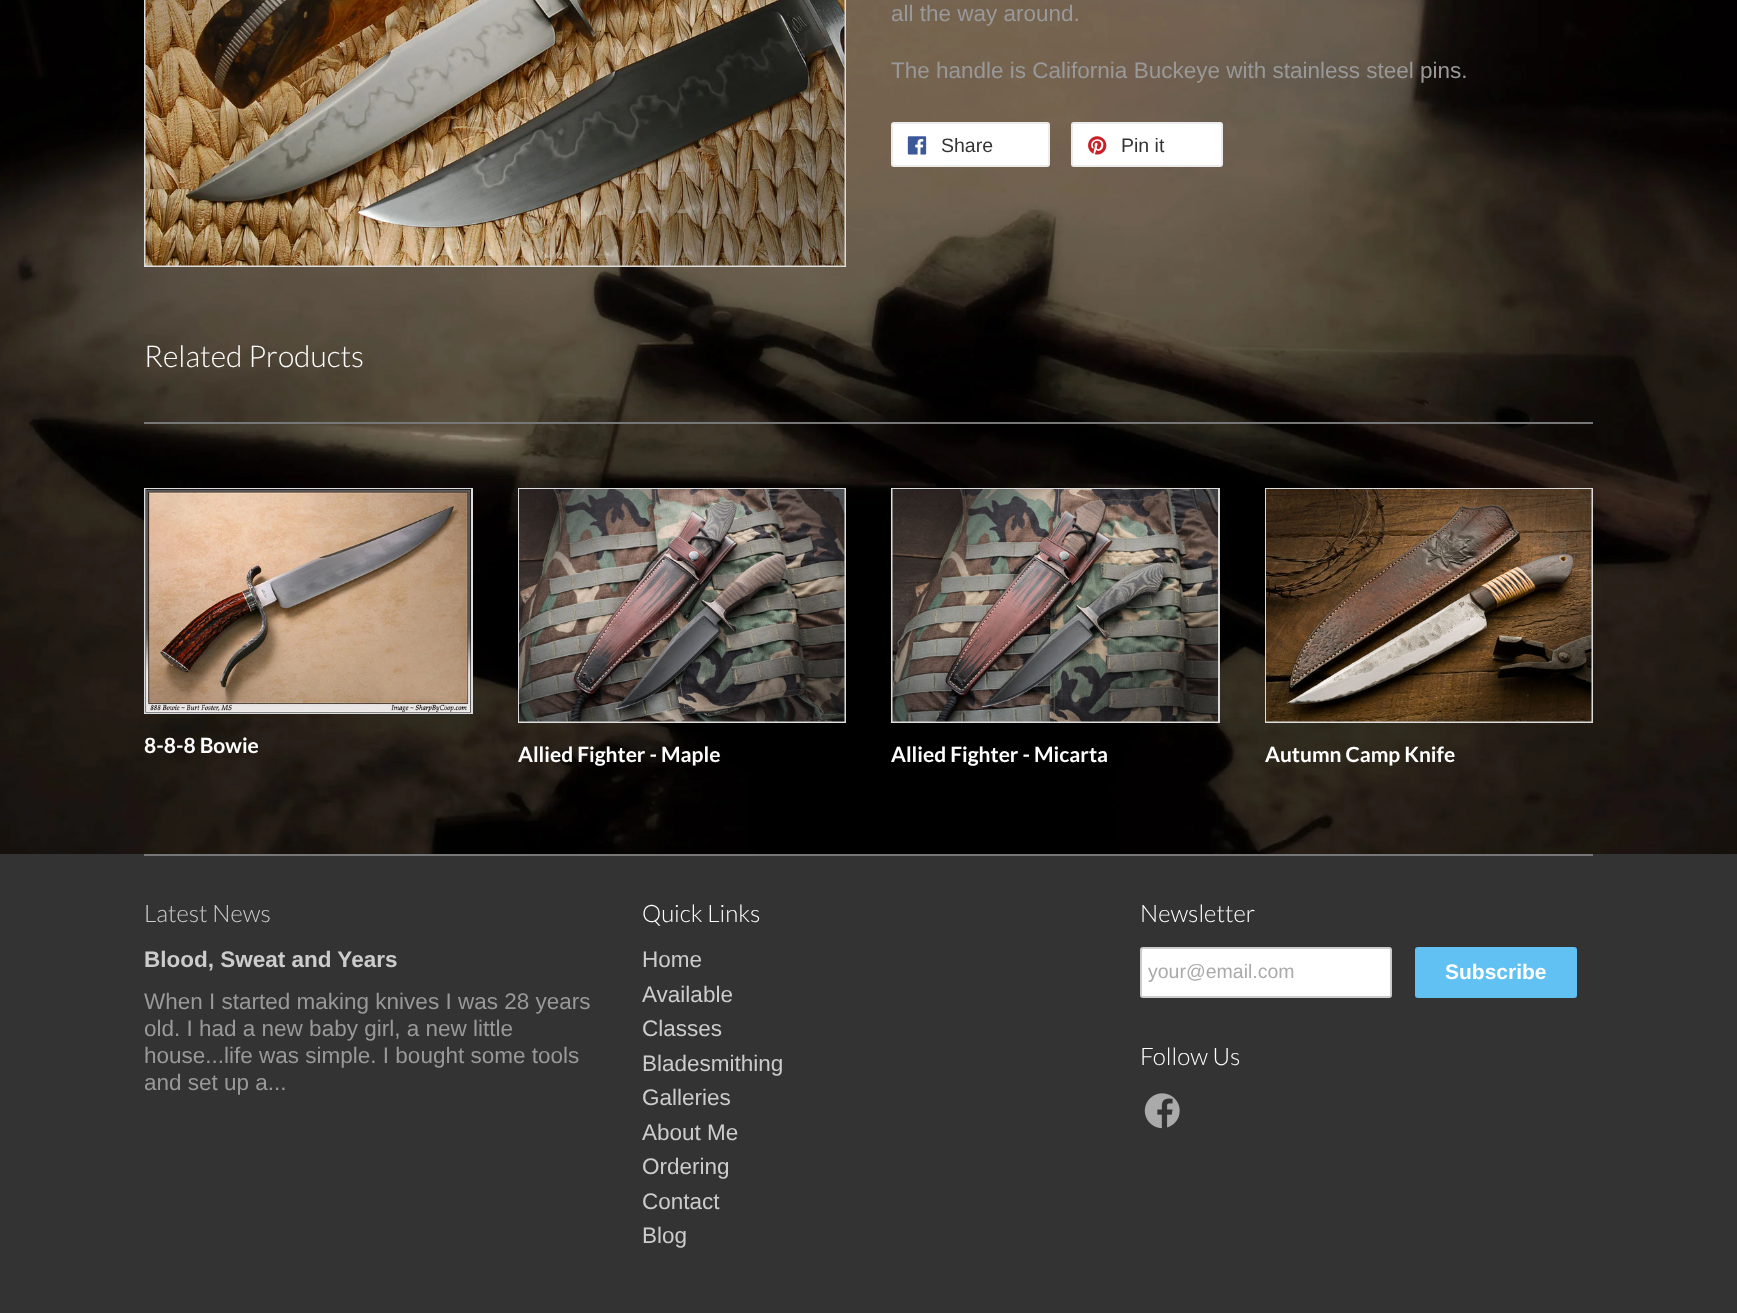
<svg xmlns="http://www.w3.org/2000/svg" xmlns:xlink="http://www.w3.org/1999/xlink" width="1737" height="1313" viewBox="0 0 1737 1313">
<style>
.cls-1{font:22.5px Liberation Sans;fill:#999999}
.cls-2{font:19.5px Liberation Sans;fill:#333333}
.cls-3{font:300 30px Lato;fill:#ffffff}
.cls-4{font:bold 21px Lato;fill:#ffffff}
.cls-5{font:300 24px Lato;fill:#cccccc}
.cls-6{font:bold 22.5px Liberation Sans;fill:#cccccc}
.cls-7{font:300 24px Lato;fill:#ffffff}
.cls-8{font:22.5px Liberation Sans;fill:#cccccc}
.cls-9{font:19.5px Liberation Sans;fill:#aaaaaa}
.cls-10{font:bold 21px Liberation Sans;fill:#ffffff}
</style>
<rect width="100%" height="100%" fill="#ffffff"/>
<image xlink:href="image0.png" x="0" y="0" width="1737" height="854"/>
<rect fill="none" stroke="#dddddd" stroke-width="2" x="145" y="-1" width="700" height="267"/>
<image xlink:href="image1.png" x="145" y="0" width="700" height="266"/>
<rect fill="#ffffff" stroke="#ececec" stroke-width="2" x="892" y="123" width="157" height="43" rx="2"/>
<image xlink:href="image2.png" x="907" y="136" width="20" height="19"/>
<rect fill="#ffffff" stroke="#ececec" stroke-width="2" x="1072" y="123" width="150" height="43" rx="2"/>
<image xlink:href="image3.png" x="1088" y="136" width="19" height="19"/>
<rect fill="#777777" x="144" y="422" width="1449" height="2"/>
<rect fill="none" stroke="#dddddd" stroke-width="2" x="145" y="489" width="327" height="224"/>
<image xlink:href="image4.png" x="145" y="489" width="326" height="224"/>
<rect fill="none" stroke="#dddddd" stroke-width="2" x="519" y="489" width="326" height="233"/>
<image xlink:href="image5.png" x="519" y="489" width="326" height="233"/>
<rect fill="none" stroke="#dddddd" stroke-width="2" x="892" y="489" width="327" height="233"/>
<image xlink:href="image6.png" x="892" y="489" width="326" height="233"/>
<rect fill="none" stroke="#dddddd" stroke-width="2" x="1266" y="489" width="326" height="233"/>
<image xlink:href="image7.png" x="1266" y="489" width="326" height="233"/>
<rect fill="#333333" x="0" y="854" width="1737" height="459"/>
<rect fill="#777777" x="144" y="854" width="1449" height="2"/>
<rect fill="#ffffff" stroke="#cccccc" stroke-width="2" x="1141" y="948" width="250" height="49" rx="2"/>
<rect fill="#60c1f2" x="1415" y="947" width="162" height="51" rx="3"/>
<image xlink:href="image8.png" x="1144" y="1093" width="36" height="36"/>
<text class="cls-1" x="891" y="21">all the way around.</text>
<text class="cls-1" x="891" y="78">The handle is California Buckeye with stainless steel pins.</text>
<text class="cls-2" x="941" y="152">Share</text>
<text class="cls-2" x="1121" y="152">Pin it</text>
<text class="cls-3" x="144" y="367">Related Products</text>
<text class="cls-4" x="144" y="753">8-8-8 Bowie</text>
<text class="cls-4" x="518" y="762">Allied Fighter - Maple</text>
<text class="cls-4" x="891" y="762">Allied Fighter - Micarta</text>
<text class="cls-4" x="1265" y="762">Autumn Camp Knife</text>
<text class="cls-5" x="144" y="922">Latest News</text>
<text class="cls-6" x="144" y="967">Blood, Sweat and Years</text>
<text class="cls-1"><tspan x="144" y="1009">When I started making knives I was 28 years</tspan><tspan x="144" y="1036">old. I had a new baby girl, a new little</tspan><tspan x="144" y="1063">house...life was simple. I bought some tools</tspan><tspan x="144" y="1090">and set up a...</tspan></text>
<text class="cls-7" x="642" y="922">Quick Links</text>
<text class="cls-8"><tspan x="642" y="967">Home</tspan><tspan x="642" y="1002">Available</tspan><tspan x="642" y="1036">Classes</tspan><tspan x="642" y="1071">Bladesmithing</tspan><tspan x="642" y="1105">Galleries</tspan><tspan x="642" y="1140">About Me</tspan><tspan x="642" y="1174">Ordering</tspan><tspan x="642" y="1209">Contact</tspan><tspan x="642" y="1243">Blog</tspan></text>
<text class="cls-7" x="1140" y="922">Newsletter</text>
<text class="cls-9" x="1148" y="978">your@email.com</text>
<text class="cls-10" x="1445" y="979">Subscribe</text>
<text class="cls-7" x="1140" y="1065">Follow Us</text>
</svg>
